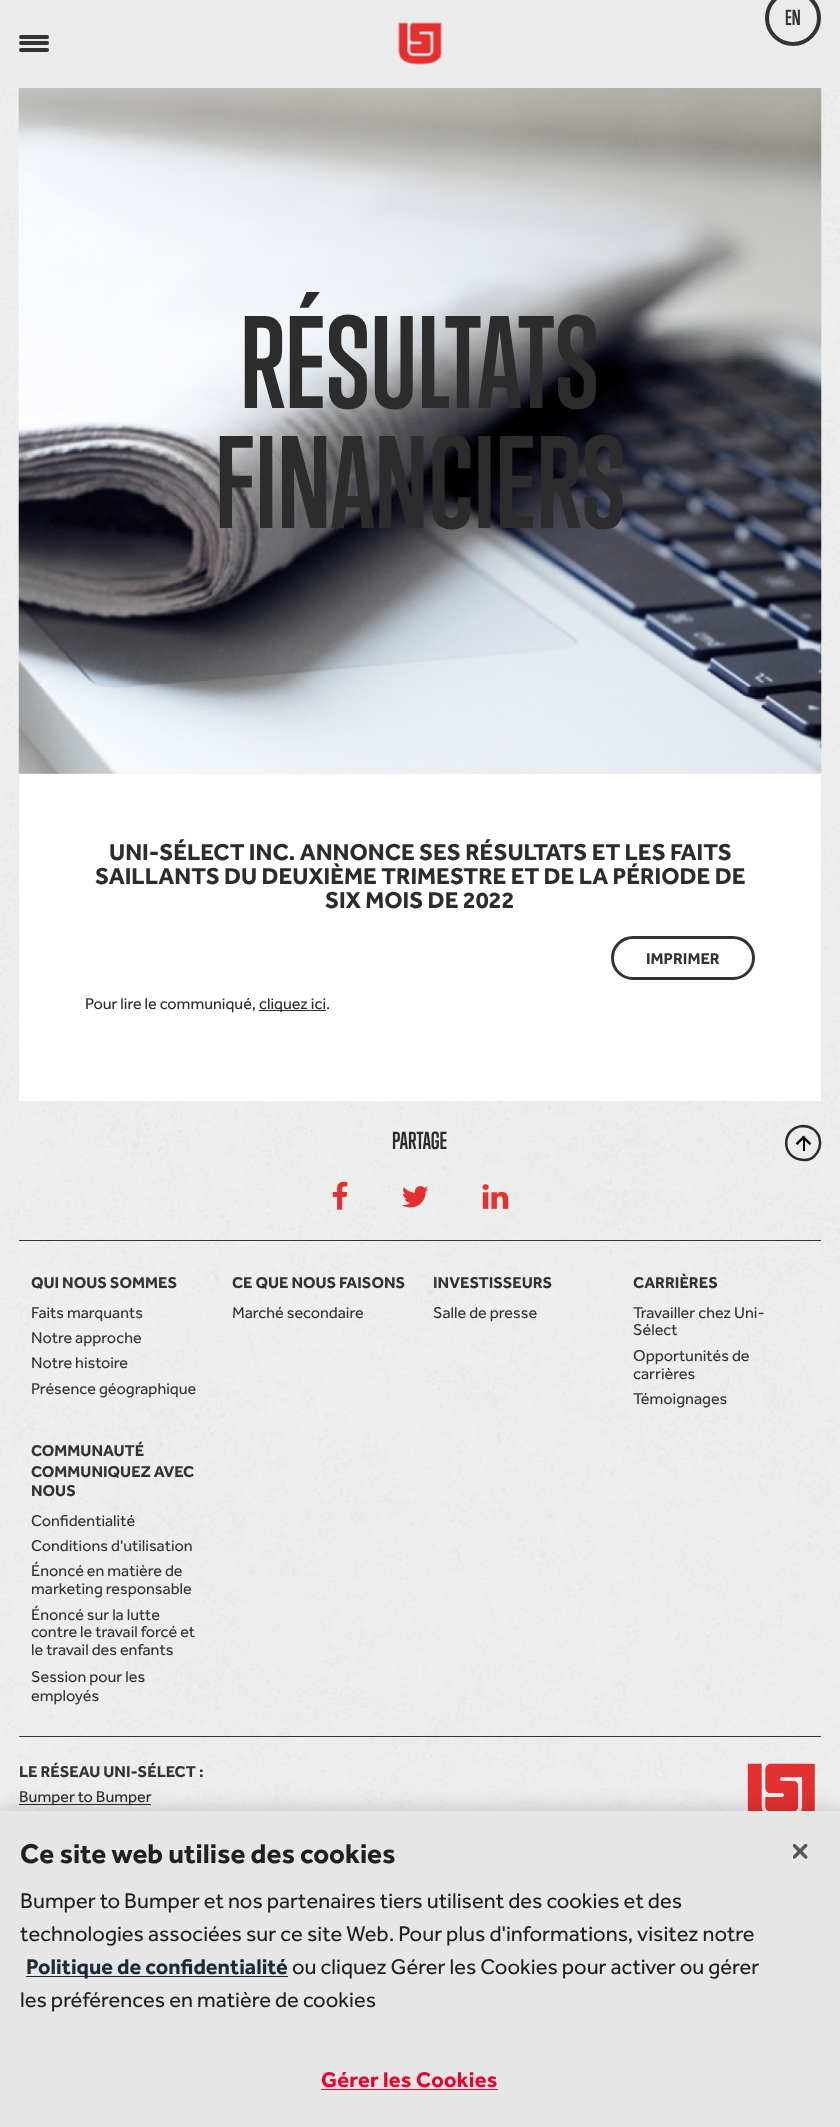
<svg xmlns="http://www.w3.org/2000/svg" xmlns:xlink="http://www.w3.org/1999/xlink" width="840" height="2127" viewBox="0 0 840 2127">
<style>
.cls-1{font:bold 20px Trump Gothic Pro;fill:#333333}
.cls-2{font:bold 120px Trump Gothic Pro;fill:#2c2c2c}
.cls-3{font:bold 23.75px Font;fill:#2c2c2c}
.cls-4{font:bold 16.25px Font;fill:#333333}
.cls-5{font:16.25px Font;fill:#2c2c2c}
.cls-6{font:bold 22.5px Trump Gothic Pro;fill:#2c2c2c}
.cls-7{font:16.25px Font;fill:#333333}
.cls-8{font:bold 28px Font;fill:#231f20}
.cls-9{font:22px Font;fill:#231f20}
.cls-10{font:bold 22px Font;fill:#1c2b39}
.cls-11{font:bold 22px Font;letter-spacing:0.25px;fill:#ea0029}
</style>
<rect width="100%" height="100%" fill="#efefef"/>
<image xlink:href="image0.png" x="0" y="89" width="840" height="1722"/>
<rect fill="#ebebeb" x="0" y="0" width="840" height="88"/>
<circle fill="none" stroke="#333333" stroke-width="4" cx="793" cy="18" r="26"/>
<rect fill="#333333" x="19" y="35" width="30" height="4" rx="2"/>
<rect fill="#333333" x="19" y="41" width="30" height="4" rx="2"/>
<rect fill="#333333" x="19" y="48" width="30" height="4" rx="2"/>
<image xlink:href="image1.png" x="398" y="22" width="44" height="43"/>
<image xlink:href="image2.png" x="18" y="88" width="804" height="686"/>
<rect fill="#ffffff" x="19" y="774" width="802" height="327"/>
<rect fill="none" stroke="#333333" stroke-width="3" x="612.5" y="937.5" width="141" height="41" rx="20.5"/>
<rect fill="#2c2c2c" x="259" y="1010" width="67" height="1"/>
<image xlink:href="image3.png" x="332" y="1181" width="16" height="29"/>
<image xlink:href="image4.png" x="402" y="1186" width="27" height="22"/>
<image xlink:href="image5.png" x="482" y="1184" width="27" height="25"/>
<image xlink:href="image6.png" x="795" y="1135" width="16" height="16"/>
<path fill="none" stroke="#2c2c2c" stroke-width="2.5" d="M804 1160C781 1160 780 1128 802.5 1126C806 1126 810 1127 813 1129C826 1138 820 1160 804 1160Z"/>
<rect fill="#333333" x="19" y="1240" width="802" height="1"/>
<rect fill="#333333" x="19" y="1736" width="802" height="1"/>
<rect fill="#2c2c2c" x="19" y="1804" width="132" height="1"/>
<image xlink:href="image7.png" x="747" y="1763" width="68" height="48"/>
<rect fill="#000000" fill-opacity="0.2" filter="blur(11px)" x="0" y="1811" width="840" height="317"/>
<rect fill="#e6e6e6" x="0" y="1811" width="840" height="316"/>
<rect fill="#1c2b39" x="26" y="1976" width="262" height="1"/>
<rect fill="#ea0029" x="321" y="2089" width="177" height="1"/>
<image xlink:href="image8.png" x="793" y="1844" width="15" height="15"/>
<text class="cls-1" x="785" y="25">EN</text>
<text class="cls-2" x="240" y="408">RÉSULTATS</text>
<text class="cls-2" x="215" y="528">FINANCIERS</text>
<text class="cls-3" x="109" y="860">UNI-SÉLECT INC. ANNONCE SES RÉSULTATS ET LES FAITS</text>
<text class="cls-3" x="95" y="884">SAILLANTS DU DEUXIÈME TRIMESTRE ET DE LA PÉRIODE DE</text>
<text class="cls-3" x="325" y="908">SIX MOIS DE 2022</text>
<text class="cls-4" x="646" y="964">IMPRIMER</text>
<text class="cls-5" x="85" y="1009">Pour lire le communiqué,</text>
<text class="cls-5" x="259" y="1009">cliquez ici.</text>
<text class="cls-6" x="392" y="1149">PARTAGE</text>
<text class="cls-4" x="31" y="1288">QUI NOUS SOMMES</text>
<text class="cls-7"><tspan x="31" y="1318">Faits marquants</tspan><tspan x="31" y="1343">Notre approche</tspan><tspan x="31" y="1368">Notre histoire</tspan><tspan x="31" y="1394">Présence géographique</tspan></text>
<text class="cls-4" x="232" y="1288">CE QUE NOUS FAISONS</text>
<text class="cls-7" x="232" y="1318">Marché secondaire</text>
<text class="cls-4" x="433" y="1288">INVESTISSEURS</text>
<text class="cls-7" x="433" y="1318">Salle de presse</text>
<text class="cls-4" x="633" y="1288">CARRIÈRES</text>
<text class="cls-7"><tspan x="633" y="1318">Travailler chez Uni-</tspan><tspan x="633" y="1335">Sélect</tspan><tspan x="633" y="1361">Opportunités de</tspan><tspan x="633" y="1379">carrières</tspan><tspan x="633" y="1404">Témoignages</tspan></text>
<text class="cls-4"><tspan x="31" y="1456">COMMUNAUTÉ</tspan><tspan x="31" y="1477">COMMUNIQUEZ AVEC</tspan><tspan x="31" y="1496">NOUS</tspan></text>
<text class="cls-7"><tspan x="31" y="1526">Confidentialité</tspan><tspan x="31" y="1551">Conditions d'utilisation</tspan><tspan x="31" y="1576">Énoncé en matière de</tspan><tspan x="31" y="1594">marketing responsable</tspan><tspan x="31" y="1620">Énoncé sur la lutte</tspan><tspan x="31" y="1637">contre le travail forcé et</tspan><tspan x="31" y="1655">le travail des enfants</tspan><tspan x="31" y="1682">Session pour les</tspan><tspan x="31" y="1701">employés</tspan></text>
<text class="cls-4" x="19" y="1777">LE RÉSEAU UNI-SÉLECT :</text>
<text class="cls-5" x="19" y="1802">Bumper to Bumper</text>
<text class="cls-8" x="20" y="1863">Ce site web utilise des cookies</text>
<text class="cls-9"><tspan x="20" y="1908">Bumper to Bumper et nos partenaires tiers utilisent des cookies et des</tspan><tspan x="20" y="1941">technologies associées sur ce site Web. Pour plus d'informations, visitez notre</tspan></text>
<text class="cls-10" x="26" y="1974">Politique de confidentialité</text>
<text class="cls-9" x="292" y="1974">ou cliquez Gérer les Cookies pour activer ou gérer</text>
<text class="cls-9" x="20" y="2007">les préférences en matière de cookies</text>
<text class="cls-11" x="321" y="2087">Gérer les Cookies</text>
</svg>
